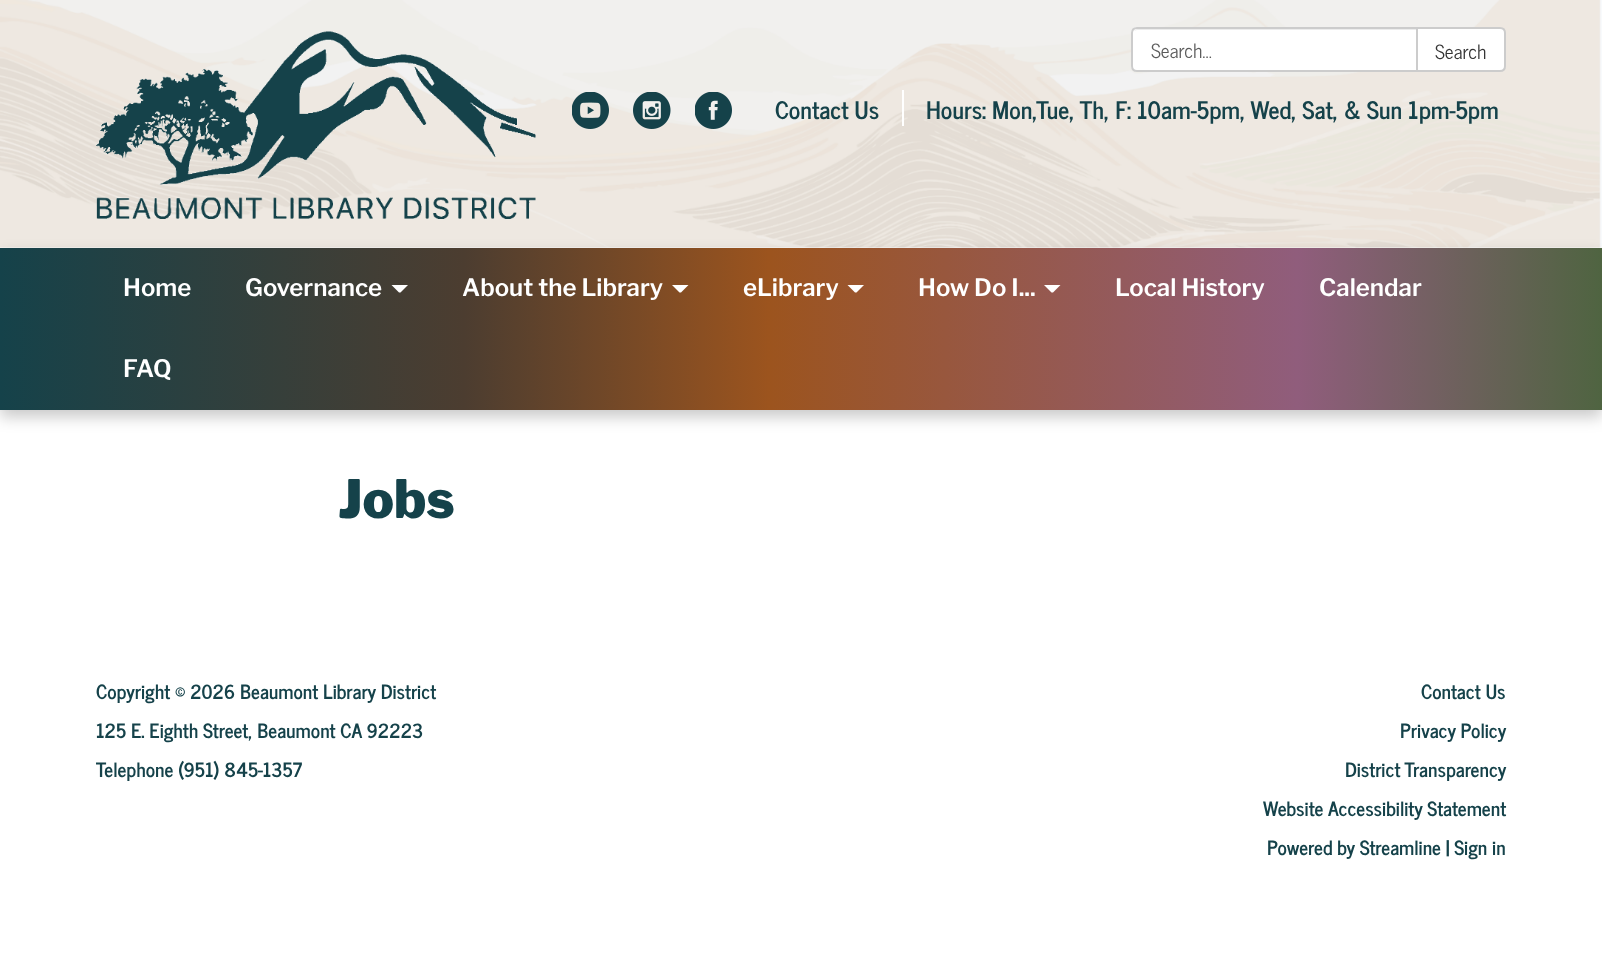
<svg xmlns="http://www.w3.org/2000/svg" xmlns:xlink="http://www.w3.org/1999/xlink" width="1602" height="980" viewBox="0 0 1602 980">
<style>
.cls-1{font:19.5px News Cycle;fill:#5b5b5b}
.cls-2{font:19.5px News Cycle;fill:#333333}
.cls-3{font:bold 24px News Cycle;fill:#15424a}
.cls-4{font:600 24px Libre Franklin;fill:#ffffff}
.cls-5{font:900 52.5px Libre Franklin;fill:#15424a}
.cls-6{font:bold 19.5px News Cycle;fill:#15424a}
</style>
<defs>
<linearGradient id="g1" gradientUnits="userSpaceOnUse" x1="0" y1="329" x2="1602" y2="328"><stop offset="0" stop-color="#15424a"/><stop offset="0.29" stop-color="#4c3d30"/><stop offset="0.48" stop-color="#9c541e"/><stop offset="0.81" stop-color="#905d7c"/><stop offset="1" stop-color="#4f6441"/></linearGradient>
</defs>
<rect width="100%" height="100%" fill="#ffffff"/>
<image xlink:href="image0.png" x="0" y="0" width="1602" height="248"/>
<image xlink:href="image1.png" x="96" y="31" width="440" height="188"/>
<path fill="#ffffff" d="M1137 27H1418V72H1137C1133.5 72 1131 69.5 1131 66V33C1131 29.5 1133.5 27 1137 27Z"/>
<path fill="#ececec" d="M1137 30H1416V29H1138C1136 29 1135 30 1134 31Z"/>
<path fill="none" stroke="#cccccc" stroke-width="2" d="M1137 28H1417V71H1137C1134 71 1132 69 1132 66V33C1132 30 1134 28 1137 28Z"/>
<path fill="#ffffff" stroke="#cccccc" stroke-width="2" d="M1417 28H1500C1503 28 1505 30 1505 33V66C1505 69 1503 71 1500 71H1417Z"/>
<image xlink:href="image2.png" x="572" y="92" width="37" height="37"/>
<image xlink:href="image3.png" x="633" y="92" width="38" height="37"/>
<image xlink:href="image4.png" x="695" y="92" width="37" height="37"/>
<rect fill="#ffffff" x="902" y="90" width="2" height="36"/>
<rect fill="#000000" fill-opacity="0.21" filter="blur(7.5px)" x="0" y="255" width="1602" height="162"/>
<rect fill="url(#g1)" x="0" y="248" width="1602" height="162"/>
<path fill="#ffffff" d="M391.5 285H408L400.5 292.5H399Z"/>
<path fill="#ffffff" d="M672 285H688.5L681 292.5H679.5Z"/>
<path fill="#ffffff" d="M847.5 285H864L856.5 292.5H855Z"/>
<path fill="#ffffff" d="M1044 285H1060.5L1053 292.5H1051.5Z"/>
<text class="cls-1" x="1151" y="58">Search...</text>
<text class="cls-2" x="1435" y="59">Search</text>
<text class="cls-3" x="775" y="119">Contact Us</text>
<text class="cls-3" x="926" y="119">Hours: Mon,Tue, Th, F: 10am-5pm, Wed, Sat, &amp; Sun 1pm-5pm</text>
<text class="cls-4" x="123" y="296">Home</text>
<text class="cls-4" x="245" y="296">Governance</text>
<text class="cls-4" x="462" y="296">About the Library</text>
<text class="cls-4" x="743" y="296">eLibrary</text>
<text class="cls-4" x="918" y="296">How Do I...</text>
<text class="cls-4" x="1115" y="296">Local History</text>
<text class="cls-4" x="1319" y="296">Calendar</text>
<text class="cls-4" x="123" y="377">FAQ</text>
<text class="cls-5" x="338" y="518">Jobs</text>
<text class="cls-6" x="96" y="699">Copyright © 2026 Beaumont Library District</text>
<text class="cls-6" x="96" y="738">125 E. Eighth Street, Beaumont CA 92223</text>
<text class="cls-6" x="96" y="777">Telephone (951) 845-1357</text>
<text class="cls-6" x="1421" y="699">Contact Us</text>
<text class="cls-6" x="1400" y="738">Privacy Policy</text>
<text class="cls-6" x="1345" y="777">District Transparency</text>
<text class="cls-6" x="1263" y="816">Website Accessibility Statement</text>
<text class="cls-6" x="1267" y="855">Powered by Streamline | Sign in</text>
</svg>
